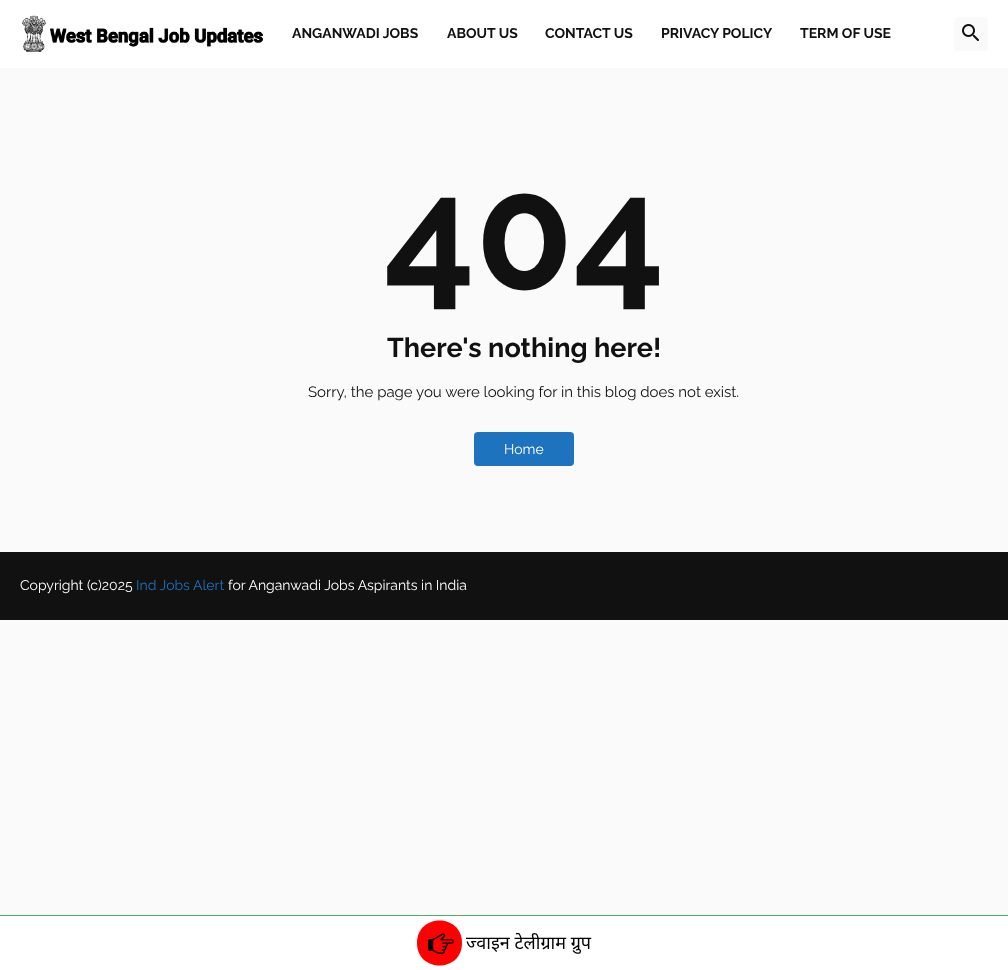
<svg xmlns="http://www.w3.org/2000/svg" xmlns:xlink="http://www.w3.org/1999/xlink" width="1008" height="970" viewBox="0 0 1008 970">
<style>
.cls-1{font:bold 14px Raleway;fill:#111111}
.cls-2{font:bold 160px Raleway;fill:#111111}
.cls-3{font:bold 27px Raleway;fill:#111111}
.cls-4{font:15px Raleway;fill:#111111}
.cls-5{font:14px Raleway;fill:#ffffff}
.cls-6{font:14px Raleway;fill:#1e73be}
.cls-7{font:18px Noto Sans;fill:#000000}
</style>
<rect width="100%" height="100%" fill="#fafafa"/>
<rect fill="#ffffff" x="0" y="0" width="1008" height="68"/>
<image xlink:href="image0.png" x="22" y="15" width="241" height="37"/>
<rect fill="#fafafa" x="954" y="17" width="34" height="34" rx="4"/>
<image xlink:href="image1.png" x="962" y="24" width="17" height="17"/>
<rect fill="#1e73be" x="474" y="432" width="100" height="34" rx="4"/>
<rect fill="#111111" x="0" y="552" width="1008" height="68"/>
<rect fill="#ffffff" x="0" y="916" width="1008" height="54"/>
<rect fill="#51b167" x="0" y="915" width="1008" height="1"/>
<path fill="#ff0000" d="M462 943C462 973 417 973 417 943C417 913 462 913 462 943Z"/>
<image xlink:href="image2.png" x="432" y="933" width="22" height="21"/>
<path fill="#000000" d="M430 939H433V951H430C429 951 428 950 428 949V941C428 940 429 939 430 939Z"/>
<text class="cls-1" x="292" y="38">ANGANWADI JOBS</text>
<text class="cls-1" x="447" y="38">ABOUT US</text>
<text class="cls-1" x="545" y="38">CONTACT US</text>
<text class="cls-1" x="661" y="38">PRIVACY POLICY</text>
<text class="cls-1" x="800" y="38">TERM OF USE</text>
<text class="cls-2" x="384" y="289">404</text>
<text class="cls-3" x="387" y="357">There's nothing here!</text>
<text class="cls-4" x="308" y="397">Sorry, the page you were looking for in this blog does not exist.</text>
<text class="cls-5" x="504" y="454">Home</text>
<text class="cls-5" x="20" y="590">Copyright (c)2025</text>
<text class="cls-6" x="136" y="590">Ind Jobs Alert</text>
<text class="cls-5" x="228" y="590">for Anganwadi Jobs Aspirants in India</text>
<text class="cls-7" x="466" y="949">ज्वाइन टेलीग्राम ग्रुप</text>
</svg>
